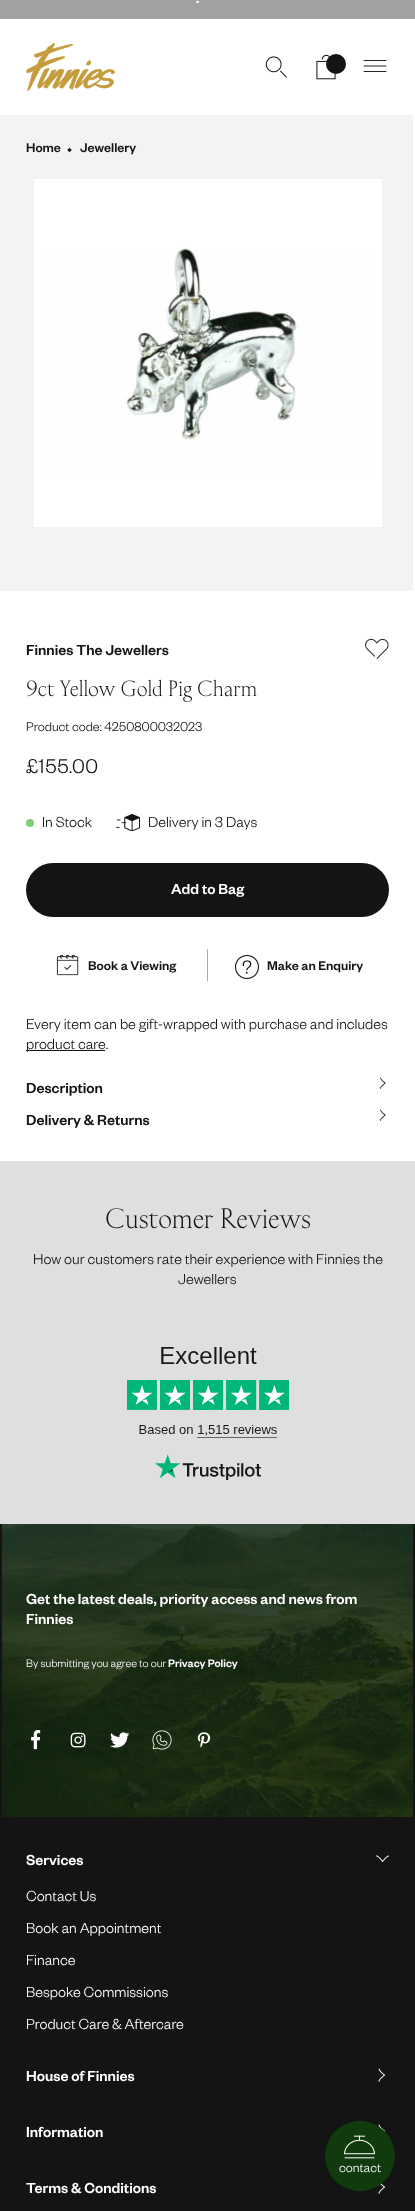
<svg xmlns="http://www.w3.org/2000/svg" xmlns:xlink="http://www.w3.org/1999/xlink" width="415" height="2211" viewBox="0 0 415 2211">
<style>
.cls-1{font:500 16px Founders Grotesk;fill:#ffffff}
.cls-2{font:500 14px Founders Grotesk;fill:#141414}
.cls-3{font:14px FreeSans;fill:#141414}
.cls-4{font:500 16px Founders Grotesk;fill:#141414}
.cls-5{font:22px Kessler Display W;fill:#141414}
.cls-6{font:300 14px Founders Grotesk;fill:#141414}
.cls-7{font:300 22px Founders Grotesk;letter-spacing:0.5px;fill:#141414}
.cls-8{font:300 16px Founders Grotesk;fill:#141414}
.cls-9{font:28px Kessler Display W;fill:#141414}
.cls-10{font:300 12px Founders Grotesk;fill:#ffffff}
.cls-11{font:500 12px Founders Grotesk;fill:#ffffff}
.cls-12{font:300 16px Founders Grotesk;fill:#ffffff}
.cls-13{font:300 14px Founders Grotesk;fill:#ffffff}
</style>
<rect width="100%" height="100%" fill="#ffffff"/>
<rect fill="#a1a1a1" x="0" y="0" width="415" height="19"/>
<image xlink:href="image0.png" x="26" y="43" width="89" height="48"/>
<image xlink:href="image1.png" x="265" y="56" width="22" height="22"/>
<image xlink:href="image2.png" x="316" y="54" width="20" height="26"/>
<circle fill="#141414" cx="336" cy="64" r="10"/>
<image xlink:href="image3.png" x="363" y="60" width="24" height="12"/>
<rect fill="#f3f3f3" x="0" y="115" width="413" height="476"/>
<image xlink:href="image4.png" x="34" y="179" width="348" height="348"/>
<image xlink:href="image5.png" x="365" y="638" width="24" height="21"/>
<circle fill="#7ece7a" cx="30" cy="823" r="4"/>
<image xlink:href="image6.png" x="116" y="814" width="24" height="17"/>
<rect fill="#141414" x="26" y="863" width="363" height="54" rx="27"/>
<rect fill="#aaaaaa" x="207" y="949" width="1" height="32"/>
<image xlink:href="image7.png" x="56" y="954" width="23" height="22"/>
<image xlink:href="image8.png" x="235" y="955" width="24" height="24"/>
<rect fill="#141414" x="26" y="1050" width="79" height="1"/>
<image xlink:href="image9.png" x="380" y="1077" width="6" height="12"/>
<image xlink:href="image9.png" x="380" y="1109" width="6" height="12"/>
<rect fill="#dfdfdf" x="0" y="1161" width="415" height="363"/>
<image xlink:href="image10.png" x="127" y="1347" width="162" height="133"/>
<rect fill="#141414" x="0" y="1524" width="415" height="687"/>
<image xlink:href="image11.png" x="2" y="1524" width="411" height="293"/>
<image xlink:href="image12.png" x="31" y="1730" width="10" height="20"/>
<image xlink:href="image13.png" x="70" y="1732" width="16" height="16"/>
<image xlink:href="image14.png" x="110" y="1732" width="20" height="16"/>
<image xlink:href="image15.png" x="152" y="1730" width="20" height="20"/>
<image xlink:href="image16.png" x="197" y="1732" width="14" height="16"/>
<image xlink:href="image17.png" x="376" y="1855" width="13" height="8"/>
<image xlink:href="image18.png" x="378" y="2068" width="8" height="14"/>
<image xlink:href="image19.png" x="378" y="2124" width="8" height="8"/>
<image xlink:href="image20.png" x="378" y="2183" width="8" height="11"/>
<circle fill="#113b0f" cx="360" cy="2156" r="35"/>
<image xlink:href="image21.png" x="344" y="2135" width="31" height="24"/>
<text class="cls-1" x="196" y="3">.</text>
<text class="cls-2" x="26" y="152">Home</text>
<text class="cls-3" x="67" y="154">⬩</text>
<text class="cls-2" x="80" y="152">Jewellery</text>
<text class="cls-4" x="26" y="655">Finnies The Jewellers</text>
<text class="cls-5" x="26" y="696">9ct Yellow Gold Pig Charm</text>
<text class="cls-6" x="26" y="731">Product code: 4250800032023</text>
<text class="cls-7" x="26" y="773">£155.00</text>
<text class="cls-8" x="42" y="827">In Stock</text>
<text class="cls-8" x="148" y="827">Delivery in 3 Days</text>
<text class="cls-1" x="171" y="894">Add to Bag</text>
<text class="cls-2" x="88" y="970">Book a Viewing</text>
<text class="cls-2" x="267" y="970">Make an Enquiry</text>
<text class="cls-8"><tspan x="26" y="1029">Every item can be gift-wrapped with purchase and includes</tspan><tspan x="26" y="1049">product care.</tspan></text>
<text class="cls-4" x="26" y="1093">Description</text>
<text class="cls-4" x="26" y="1125">Delivery &amp; Returns</text>
<text class="cls-9" x="105" y="1228">Customer Reviews</text>
<text class="cls-8" x="33" y="1264">How our customers rate their experience with Finnies the</text>
<text class="cls-8" x="178" y="1284">Jewellers</text>
<text class="cls-1"><tspan x="26" y="1604">Get the latest deals, priority access and news from</tspan><tspan x="26" y="1624">Finnies</tspan></text>
<text class="cls-10" x="26" y="1667">By submitting you agree to our</text>
<text class="cls-11" x="168" y="1667">Privacy Policy</text>
<text class="cls-1" x="26" y="1865">Services</text>
<text class="cls-12" x="26" y="1901">Contact Us</text>
<text class="cls-12" x="26" y="1933">Book an Appointment</text>
<text class="cls-12" x="26" y="1965">Finance</text>
<text class="cls-12" x="26" y="1997">Bespoke Commissions</text>
<text class="cls-12" x="26" y="2029">Product Care &amp; Aftercare</text>
<text class="cls-1" x="26" y="2081">House of Finnies</text>
<text class="cls-1" x="26" y="2137">Information</text>
<text class="cls-1" x="26" y="2193">Terms &amp; Conditions</text>
<text class="cls-13" x="339" y="2172">contact</text>
</svg>
